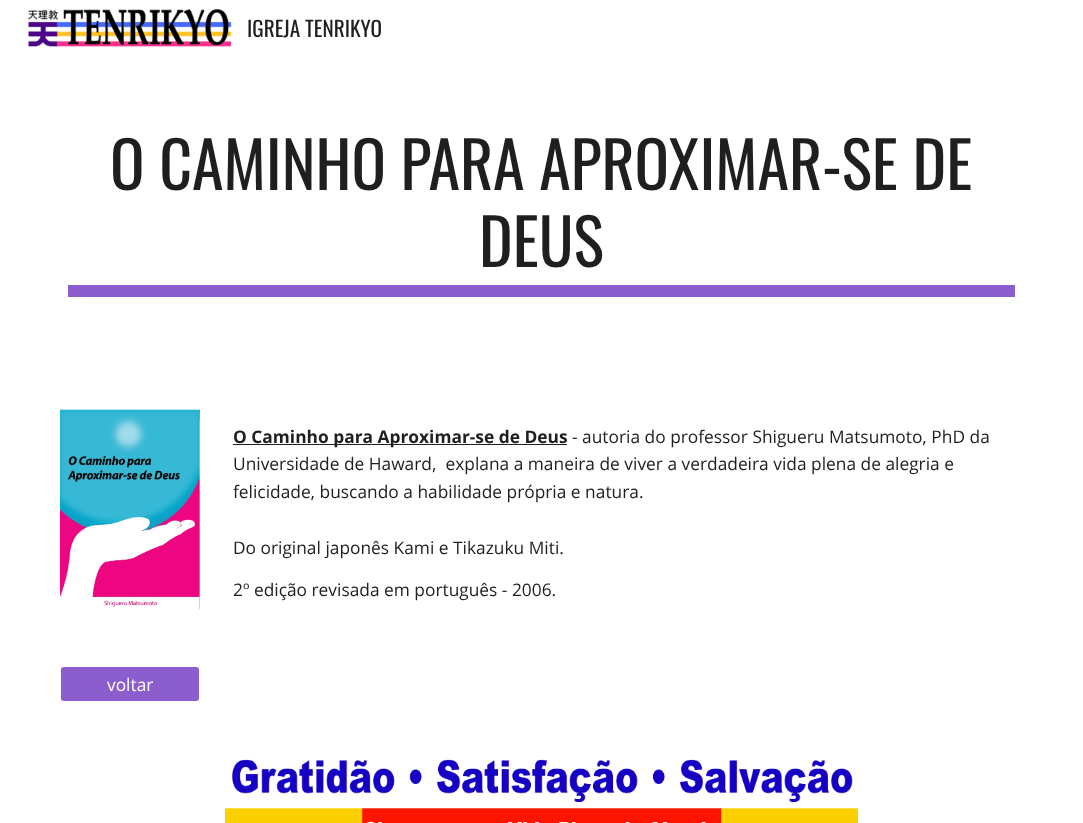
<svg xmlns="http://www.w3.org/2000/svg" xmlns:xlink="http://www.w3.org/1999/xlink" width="1083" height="823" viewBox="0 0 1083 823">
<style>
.cls-1{font:21.25px Oswald;fill:#1f1f1f}
.cls-2{font:64px Oswald;fill:#1f1f1f}
.cls-3{font:bold 17.35px Open Sans;fill:#1f1f1f}
.cls-4{font:17.35px Open Sans;fill:#1f1f1f}
.cls-5{font:17.35px Open Sans;fill:#ffffff}
</style>
<rect width="100%" height="100%" fill="#ffffff"/>
<image xlink:href="image0.png" x="28" y="9" width="204" height="38"/>
<rect fill="#8b5dcd" x="68" y="285" width="947" height="12"/>
<image xlink:href="image1.png" x="60" y="409" width="140" height="200"/>
<rect fill="#212121" x="233" y="444" width="334" height="1"/>
<rect fill="#8b5dcd" x="61" y="667" width="138" height="34" rx="3"/>
<image xlink:href="image2.png" x="225" y="759" width="633" height="64"/>
<text class="cls-1" x="247" y="37">IGREJA TENRIKYO</text>
<text class="cls-2" x="110" y="190">O CAMINHO PARA APROXIMAR-SE DE</text>
<text class="cls-2" x="479" y="267">DEUS</text>
<text class="cls-3" x="233" y="443">O Caminho para Aproximar-se de Deus</text>
<text class="cls-4" x="572" y="443">- autoria do professor Shigueru Matsumoto, PhD da</text>
<text class="cls-4" xml:space="preserve"><tspan x="233" y="470">Universidade de Haward,  explana a maneira de viver a verdadeira vida plena de alegria e</tspan><tspan x="233" y="498">felicidade, buscando a habilidade própria e natura.</tspan></text>
<text class="cls-4" x="233" y="554">Do original japonês Kami e Tikazuku Miti.</text>
<text class="cls-4" x="233" y="596">2º edição revisada em português - 2006.</text>
<text class="cls-5" x="107" y="691">voltar</text>
</svg>
